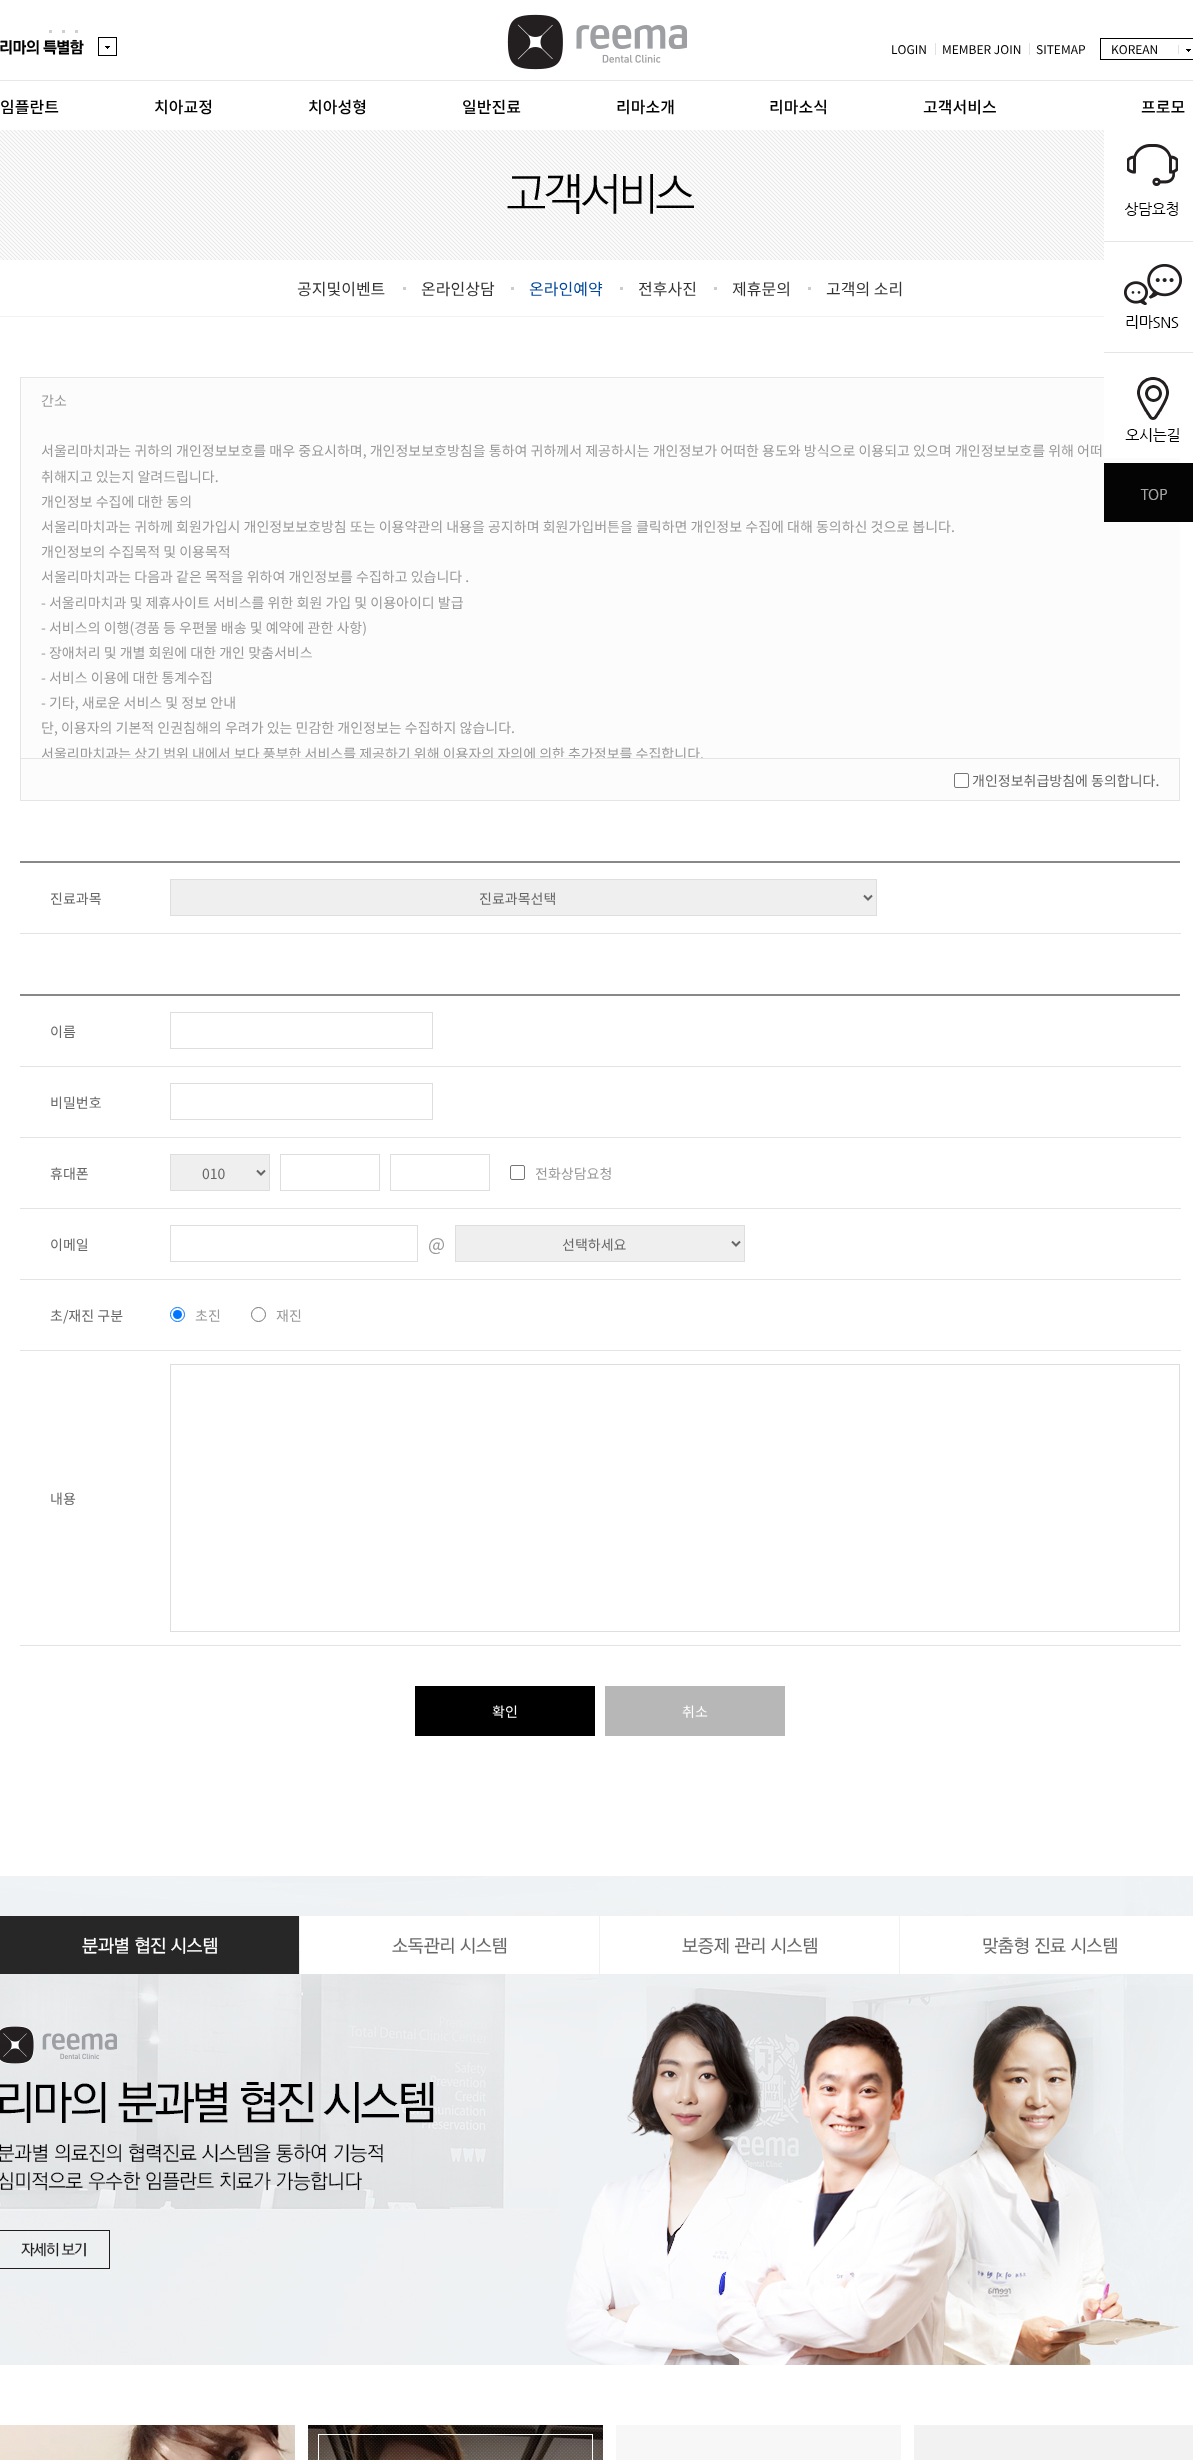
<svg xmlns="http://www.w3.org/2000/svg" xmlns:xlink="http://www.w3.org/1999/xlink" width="1193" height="2460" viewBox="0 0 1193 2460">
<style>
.cls-1{font:12px Noto Sans KR;fill:#000000}
.cls-2{font:500 16px Noto Sans KR;fill:#000000}
.cls-3{font:16px Noto Sans KR;fill:#333333}
.cls-4{font:16px Noto Sans KR;fill:#01479d}
.cls-5{font:14px Noto Sans KR;fill:#999999}
.cls-6{font:14px Noto Sans KR;fill:#666666}
.cls-7{font:18px Noto Sans KR;fill:#999999}
.cls-8{font:14px Noto Sans KR;fill:#ffffff}
</style>
<defs>
<clipPath id="clip1"><rect x="20" y="377" width="1160" height="424"/></clipPath>
<clipPath id="clip2"><rect x="21" y="378" width="1159" height="380"/></clipPath>
</defs>
<rect width="100%" height="100%" fill="#ffffff"/>
<rect fill="#e7e7e8" x="0" y="80" width="1193" height="1"/>
<image xlink:href="image0.png" x="0" y="30" width="117" height="26"/>
<image xlink:href="image1.png" x="507" y="14" width="180" height="56"/>
<rect fill="#e2e1e1" x="935" y="43" width="1" height="12"/>
<rect fill="#e2e1e1" x="1029" y="43" width="1" height="12"/>
<image xlink:href="image2.png" x="1178" y="45" width="13" height="9"/>
<rect fill="none" stroke="#000000" x="1100.5" y="38.5" width="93" height="21"/>
<image xlink:href="image3.png" x="1104" y="130" width="89" height="111"/>
<image xlink:href="image4.png" x="1104" y="241" width="89" height="88"/>
<rect fill="#fcfcfc" x="21" y="378" width="1159" height="422"/>
<g clip-path="url(#clip1)">
<rect fill="none" stroke="#e5e5e5" x="20.5" y="377.5" width="1161" height="381"/>
</g>
<image xlink:href="image5.png" x="1104" y="352" width="89" height="106"/>
<image xlink:href="image6.png" x="1104" y="463" width="89" height="59"/>
<image xlink:href="image7.png" x="0" y="130" width="1104" height="130"/>
<image xlink:href="image8.png" x="507" y="174" width="187" height="40"/>
<rect fill="#f3f3f3" x="0" y="316" width="1104" height="1"/>
<rect fill="#cccccc" x="403" y="287" width="3" height="3"/>
<rect fill="#cccccc" x="511" y="287" width="3" height="3"/>
<rect fill="#cccccc" x="620" y="287" width="3" height="3"/>
<rect fill="#cccccc" x="714" y="287" width="3" height="3"/>
<rect fill="#cccccc" x="808" y="287" width="3" height="3"/>
<rect fill="#e5e5e5" x="1179" y="759" width="1" height="42"/>
<rect fill="#e5e5e5" x="20" y="800" width="1160" height="1"/>
<rect fill="#e5e5e5" x="20" y="759" width="1" height="42"/>
<rect fill="#ffffff" stroke="#767676" x="954.5" y="773.5" width="14" height="14" rx="1.5"/>
<rect fill="#888888" x="20" y="861" width="1160" height="2"/>
<rect fill="#e1e3e4" x="20" y="933" width="1161" height="1"/>
<rect fill="#efefef" stroke="#dedede" x="170.5" y="879.5" width="706" height="36"/>
<path fill="none" stroke="#666666" stroke-width="2" d="M864 895.5L868 899.5L872 895.5"/>
<rect fill="#888888" x="20" y="994" width="1160" height="2"/>
<rect fill="#e1e3e4" x="20" y="1066" width="1161" height="1"/>
<rect fill="none" stroke="#dedede" x="170.5" y="1012.5" width="262" height="36"/>
<rect fill="#e1e3e4" x="20" y="1137" width="1161" height="1"/>
<rect fill="none" stroke="#dedede" x="170.5" y="1083.5" width="262" height="36"/>
<rect fill="#e1e3e4" x="20" y="1208" width="1161" height="1"/>
<rect fill="#efefef" stroke="#dedede" x="170.5" y="1154.5" width="99" height="36"/>
<path fill="none" stroke="#666666" stroke-width="2" d="M257 1170.5L261 1174.5L265 1170.5"/>
<rect fill="none" stroke="#dedede" x="280.5" y="1154.5" width="99" height="36"/>
<rect fill="none" stroke="#dedede" x="390.5" y="1154.5" width="99" height="36"/>
<rect fill="none" stroke="#767676" x="510.5" y="1165.5" width="14" height="14" rx="1.5"/>
<rect fill="#e1e3e4" x="20" y="1279" width="1161" height="1"/>
<rect fill="none" stroke="#dedede" x="170.5" y="1225.5" width="247" height="36"/>
<rect fill="#efefef" stroke="#dedede" x="455.5" y="1225.5" width="289" height="36"/>
<path fill="none" stroke="#666666" stroke-width="2" d="M732 1241.5L736 1245.5L740 1241.5"/>
<rect fill="#e1e3e4" x="20" y="1350" width="1161" height="1"/>
<circle fill="none" stroke="#0075ff" cx="177.5" cy="1314.5" r="7"/>
<circle fill="#0075ff" cx="177.5" cy="1314.5" r="4.5"/>
<circle fill="none" stroke="#767676" cx="258.5" cy="1314.5" r="7"/>
<rect fill="#e1e3e4" x="20" y="1645" width="1161" height="1"/>
<rect fill="none" stroke="#dedede" x="170.5" y="1364.5" width="1009" height="267"/>
<rect fill="#000000" x="415" y="1686" width="180" height="50"/>
<rect fill="#b7b7b7" x="605" y="1686" width="180" height="50"/>
<image xlink:href="image9.png" x="0" y="1876" width="1193" height="489"/>
<image xlink:href="image10.png" x="0" y="1916" width="300" height="58"/>
<image xlink:href="image11.png" x="300" y="1916" width="299" height="58"/>
<image xlink:href="image12.png" x="600" y="1916" width="299" height="58"/>
<image xlink:href="image13.png" x="900" y="1916" width="293" height="58"/>
<image xlink:href="image14.png" x="0" y="2425" width="295" height="35"/>
<image xlink:href="image15.png" x="308" y="2425" width="295" height="35"/>
<rect fill="#f7f7f7" x="616" y="2425" width="285" height="35"/>
<rect fill="#f2f2f2" x="914" y="2425" width="279" height="35"/>
<text class="cls-1" x="891" y="54">LOGIN</text>
<text class="cls-1" x="942" y="54">MEMBER JOIN</text>
<text class="cls-1" x="1036" y="54">SITEMAP</text>
<text class="cls-1" x="1111" y="54">KOREAN</text>
<text class="cls-2" x="0" y="113">임플란트</text>
<text class="cls-2" x="154" y="113">치아교정</text>
<text class="cls-2" x="308" y="113">치아성형</text>
<text class="cls-2" x="462" y="113">일반진료</text>
<text class="cls-2" x="616" y="113">리마소개</text>
<text class="cls-2" x="769" y="113">리마소식</text>
<text class="cls-2" x="923" y="113">고객서비스</text>
<text class="cls-2" x="1141" y="113">프로모</text>
<text class="cls-3" x="297" y="295">공지및이벤트</text>
<text class="cls-3" x="421" y="295">온라인상담</text>
<text class="cls-4" x="529" y="295">온라인예약</text>
<text class="cls-3" x="638" y="295">전후사진</text>
<text class="cls-3" x="732" y="295">제휴문의</text>
<text class="cls-3" x="826" y="295">고객의 소리</text>
<text class="cls-5" x="41" y="406">간소</text>
<text class="cls-5"><tspan x="41" y="456">서울리마치과는 귀하의 개인정보보호를 매우 중요시하며, 개인정보보호방침을 통하여 귀하께서 제공하시는 개인정보가 어떠한 용도와 방식으로 이용되고 있으며 개인정보보호를 위해 어떠</tspan><tspan x="41" y="482">취해지고 있는지 알려드립니다.</tspan><tspan x="41" y="507">개인정보 수집에 대한 동의</tspan><tspan x="41" y="532">서울리마치과는 귀하께 회원가입시 개인정보보호방침 또는 이용약관의 내용을 공지하며 회원가입버튼을 클릭하면 개인정보 수집에 대해 동의하신 것으로 봅니다.</tspan><tspan x="41" y="557">개인정보의 수집목적 및 이용목적</tspan><tspan x="41" y="582">서울리마치과는 다음과 같은 목적을 위하여 개인정보를 수집하고 있습니다 .</tspan><tspan x="41" y="608">- 서울리마치과 및 제휴사이트 서비스를 위한 회원 가입 및 이용아이디 발급</tspan><tspan x="41" y="633">- 서비스의 이행(경품 등 우편물 배송 및 예약에 관한 사항)</tspan><tspan x="41" y="658">- 장애처리 및 개별 회원에 대한 개인 맞춤서비스</tspan><tspan x="41" y="683">- 서비스 이용에 대한 통계수집</tspan><tspan x="41" y="708">- 기타, 새로운 서비스 및 정보 안내</tspan><tspan x="41" y="733">단, 이용자의 기본적 인권침해의 우려가 있는 민감한 개인정보는 수집하지 않습니다.</tspan></text>
<g clip-path="url(#clip2)">
<text class="cls-5" x="41" y="759">서울리마치과는 상기 범위 내에서 보다 풍부한 서비스를 제공하기 위해 이용자의 자의에 의한 추가정보를 수집합니다.</text>
</g>
<text class="cls-6" x="972" y="786">개인정보취급방침에 동의합니다.</text>
<text class="cls-6" x="50" y="904">진료과목</text>
<text class="cls-6" x="479" y="904">진료과목선택</text>
<text class="cls-6" x="50" y="1037">이름</text>
<text class="cls-6" x="50" y="1108">비밀번호</text>
<text class="cls-6" x="50" y="1179">휴대폰</text>
<text class="cls-6" x="202" y="1179">010</text>
<text class="cls-5" x="535" y="1179">전화상담요청</text>
<text class="cls-6" x="50" y="1250">이메일</text>
<text class="cls-7" x="428" y="1251">@</text>
<text class="cls-6" x="562" y="1250">선택하세요</text>
<text class="cls-6" x="50" y="1321">초/재진 구분</text>
<text class="cls-5" x="195" y="1321">초진</text>
<text class="cls-5" x="276" y="1321">재진</text>
<text class="cls-6" x="50" y="1504">내용</text>
<text class="cls-8" x="492" y="1717">확인</text>
<text class="cls-8" x="682" y="1717">취소</text>
</svg>
